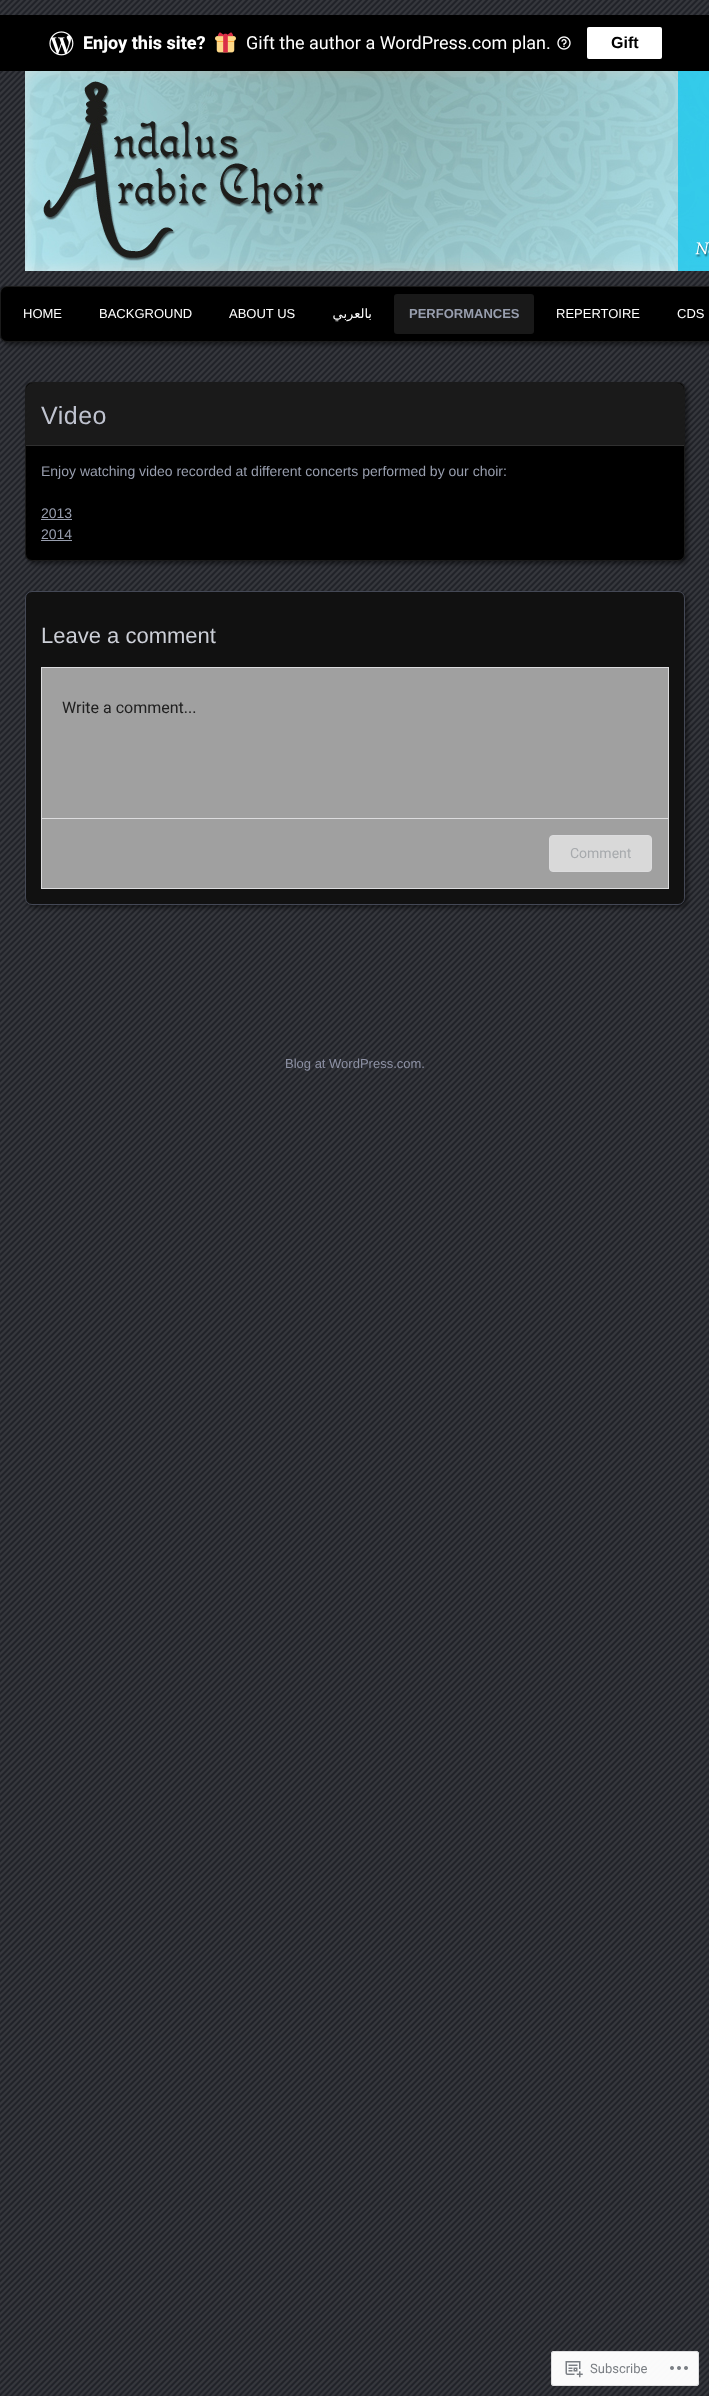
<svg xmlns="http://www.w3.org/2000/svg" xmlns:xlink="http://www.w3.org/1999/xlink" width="709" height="2396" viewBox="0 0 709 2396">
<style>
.cls-1{font:800 18px Roboto;fill:#ffffff}
.cls-2{font:18px Roboto;fill:#ffffff}
.cls-3{font:bold 16px Liberation Sans;fill:#000000}
.cls-4{font:13px Liberation Sans;fill:#ffffff}
.cls-5{font:13px DejaVu Sans;direction:rtl;fill:#ffffff}
.cls-6{font:bold 13px Liberation Sans;fill:#989eae}
.cls-7{font:25px Liberation Sans;letter-spacing:0.5px;fill:#bfc3cf}
.cls-8{font:14px Liberation Sans;fill:#989eae}
.cls-9{font:22px Liberation Sans;fill:#cccfd7}
.cls-10{font:16px Roboto;fill:#202020}
.cls-11{font:14px Roboto;fill:#a7aaad}
.cls-12{font:13px Liberation Sans;fill:#8d91a4}
.cls-13{font:13px Roboto;fill:#7b7f84}
</style>
<rect width="100%" height="100%" fill="#202228"/>
<image xlink:href="image0.png" x="0" y="0" width="709" height="2396"/>
<rect fill="#000000" x="0" y="15" width="709" height="56"/>
<image xlink:href="image1.png" x="49" y="31" width="25" height="25"/>
<image xlink:href="image2.png" x="215" y="32" width="21" height="21"/>
<image xlink:href="image3.png" x="557" y="36" width="14" height="14"/>
<rect fill="#ffffff" x="587" y="27" width="75" height="32" rx="2"/>
<image xlink:href="image4.png" x="25" y="71" width="684" height="200"/>
<rect fill="#000000" fill-opacity="0.45" filter="blur(2px)" x="3" y="289" width="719" height="56" rx="7"/>
<rect fill="#000000" x="0" y="286" width="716" height="56" rx="7"/>
<rect fill="none" stroke="#ffffff" stroke-opacity="0.1" x="0.5" y="286.5" width="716" height="55" rx="6.5"/>
<rect fill="#191919" x="394" y="294" width="140" height="40" rx="3"/>
<rect fill="#000000" fill-opacity="0.45" filter="blur(2px)" x="28" y="385" width="660" height="179" rx="7"/>
<rect fill="#000000" x="25" y="382" width="660" height="179" rx="7"/>
<rect fill="none" stroke="#ffffff" stroke-opacity="0.1" x="25.5" y="382.5" width="659" height="178" rx="6.5"/>
<path fill="#ffffff" fill-opacity="0.1" d="M33 383H677C681 383 684 386 684 390V446H26V390C26 386 29 383 33 383Z"/>
<rect fill="#303030" x="26" y="445" width="658" height="1"/>
<rect fill="#989eae" x="41" y="519" width="31" height="1"/>
<rect fill="#989eae" x="41" y="540" width="31" height="1"/>
<rect fill="#000000" fill-opacity="0.45" filter="blur(2px)" x="28" y="594" width="660" height="314" rx="7"/>
<rect fill="#111111" stroke="#444855" x="25.5" y="591.5" width="659" height="313" rx="6.5"/>
<rect fill="#a0a0a0" stroke="#dcdcde" x="41.5" y="667.5" width="627" height="221"/>
<rect fill="#dcdcde" x="42" y="818" width="626" height="1"/>
<rect fill="#d9d9d9" stroke="#dcdcde" x="549.5" y="835.5" width="102" height="36" rx="3.5"/>
<rect fill="#ffffff" fill-opacity="0.98" x="551" y="2351" width="148" height="35" rx="3"/>
<rect fill="none" stroke="#dcdcde" stroke-opacity="0.98" x="551.5" y="2351.5" width="147" height="34" rx="2.5"/>
<image xlink:href="image5.png" x="565" y="2361" width="18" height="17"/>
<image xlink:href="image6.png" x="670" y="2366" width="18" height="4"/>
<text class="cls-1" x="83" y="49">Enjoy this site?</text>
<text class="cls-2" x="246" y="49">Gift the author a WordPress.com plan.</text>
<text class="cls-3" x="611" y="48">Gift</text>
<text class="cls-4" x="23" y="318">HOME</text>
<text class="cls-4" x="99" y="318">BACKGROUND</text>
<text class="cls-4" x="229" y="318">ABOUT US</text>
<text class="cls-5" x="372" y="318">بالعربي</text>
<text class="cls-6" x="409" y="318">PERFORMANCES</text>
<text class="cls-4" x="556" y="318">REPERTOIRE</text>
<text class="cls-4" x="677" y="318">CDS</text>
<text class="cls-7" x="41" y="424">Video</text>
<text class="cls-8" x="41" y="476">Enjoy watching video recorded at different concerts performed by our choir:</text>
<text class="cls-8"><tspan x="41" y="518">2013</tspan><tspan x="41" y="539">2014</tspan></text>
<text class="cls-9" x="41" y="643">Leave a comment</text>
<text class="cls-10" x="62" y="713">Write a comment...</text>
<text class="cls-11" x="570" y="858">Comment</text>
<text class="cls-12" x="285" y="1068">Blog at WordPress.com.</text>
<text class="cls-13" x="590" y="2373">Subscribe</text>
</svg>
